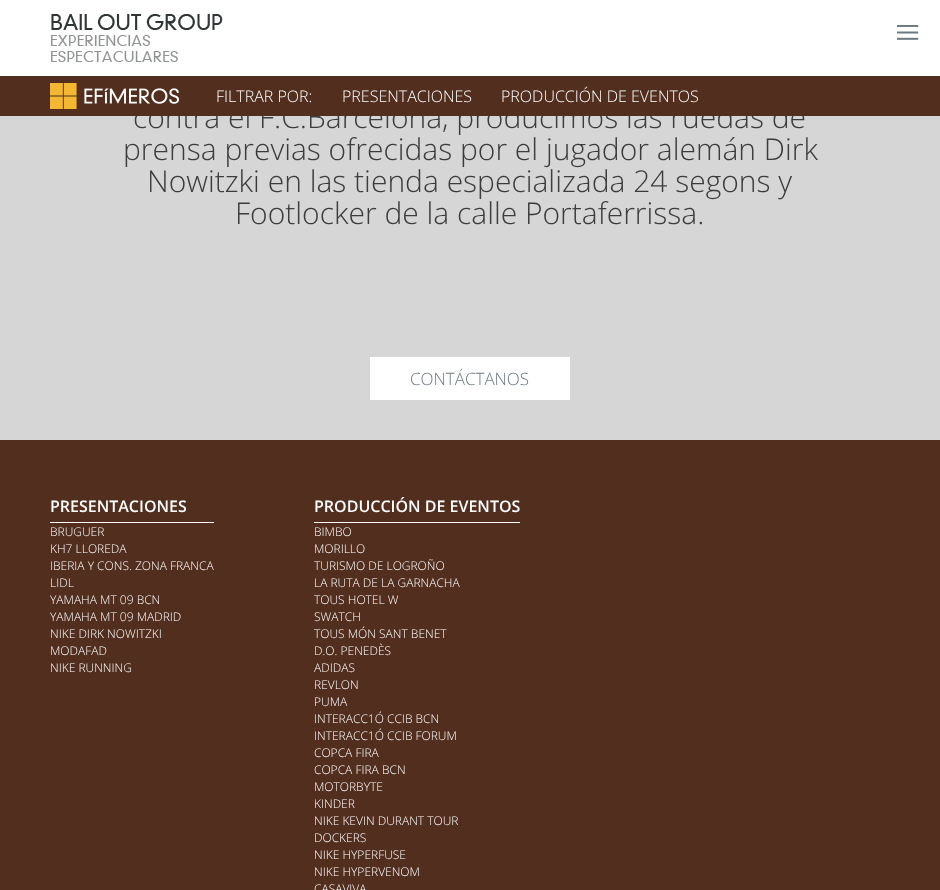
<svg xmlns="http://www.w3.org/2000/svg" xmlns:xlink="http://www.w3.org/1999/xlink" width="940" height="890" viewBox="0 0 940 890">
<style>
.cls-1{font:300 30px Open Sans;fill:#3c3c3b}
.cls-2{font:300 16px Open Sans;fill:#ffffff}
.cls-3{font:300 17px Open Sans;fill:#6c7a81}
.cls-4{font:600 16px Open Sans;fill:#ffffff}
.cls-5{font:300 12px Open Sans;fill:#ffffff}
</style>
<rect width="100%" height="100%" fill="#d6d6d6"/>
<rect fill="#ffffff" x="0" y="0" width="940" height="76"/>
<image xlink:href="image0.png" x="51" y="14" width="172" height="48"/>
<image xlink:href="image1.png" x="897" y="25" width="22" height="15"/>
<rect fill="#ffffff" x="370" y="357" width="200" height="43"/>
<rect fill="#522e1e" x="0" y="440" width="940" height="450"/>
<rect fill="#ffffff" x="50" y="522" width="164" height="1"/>
<rect fill="#ffffff" x="314" y="522" width="206" height="1"/>
<text class="cls-1" x="133" y="128">contra el F.C.Barcelona, producimos las ruedas de</text>
<rect fill="#522e1e" x="0" y="76" width="940" height="40"/>
<image xlink:href="image2.png" x="50" y="83" width="129" height="26"/>
<text class="cls-2" x="501" y="102">PRODUCCIÓN DE EVENTOS</text>
<text class="cls-2" x="342" y="102">PRESENTACIONES</text>
<text class="cls-2" x="216" y="102">FILTRAR POR:</text>
<text class="cls-1" x="123" y="160">prensa previas ofrecidas por el jugador alemán Dirk</text>
<text class="cls-1" x="147" y="192">Nowitzki en las tienda especializada 24 segons y</text>
<text class="cls-1" x="235" y="224">Footlocker de la calle Portaferrissa.</text>
<text class="cls-3" x="410" y="385">CONTÁCTANOS</text>
<text class="cls-4" x="50" y="512">PRESENTACIONES</text>
<text class="cls-5"><tspan x="50" y="536">BRUGUER</tspan><tspan x="50" y="553">KH7 LLOREDA</tspan><tspan x="50" y="570">IBERIA Y CONS. ZONA FRANCA</tspan><tspan x="50" y="587">LIDL</tspan><tspan x="50" y="604">YAMAHA MT 09 BCN</tspan><tspan x="50" y="621">YAMAHA MT 09 MADRID</tspan><tspan x="50" y="638">NIKE DIRK NOWITZKI</tspan><tspan x="50" y="655">MODAFAD</tspan><tspan x="50" y="672">NIKE RUNNING</tspan></text>
<text class="cls-4" x="314" y="512">PRODUCCIÓN DE EVENTOS</text>
<text class="cls-5"><tspan x="314" y="536">BIMBO</tspan><tspan x="314" y="553">MORILLO</tspan><tspan x="314" y="570">TURISMO DE LOGROÑO</tspan><tspan x="314" y="587">LA RUTA DE LA GARNACHA</tspan><tspan x="314" y="604">TOUS HOTEL W</tspan><tspan x="314" y="621">SWATCH</tspan><tspan x="314" y="638">TOUS MÓN SANT BENET</tspan><tspan x="314" y="655">D.O. PENEDÈS</tspan><tspan x="314" y="672">ADIDAS</tspan><tspan x="314" y="689">REVLON</tspan><tspan x="314" y="706">PUMA</tspan><tspan x="314" y="723">INTERACC1Ó CCIB BCN</tspan><tspan x="314" y="740">INTERACC1Ó CCIB FORUM</tspan><tspan x="314" y="757">COPCA FIRA</tspan><tspan x="314" y="774">COPCA FIRA BCN</tspan><tspan x="314" y="791">MOTORBYTE</tspan><tspan x="314" y="808">KINDER</tspan><tspan x="314" y="825">NIKE KEVIN DURANT TOUR</tspan><tspan x="314" y="842">DOCKERS</tspan><tspan x="314" y="859">NIKE HYPERFUSE</tspan><tspan x="314" y="876">NIKE HYPERVENOM</tspan><tspan x="314" y="893">CASAVIVA</tspan></text>
</svg>
